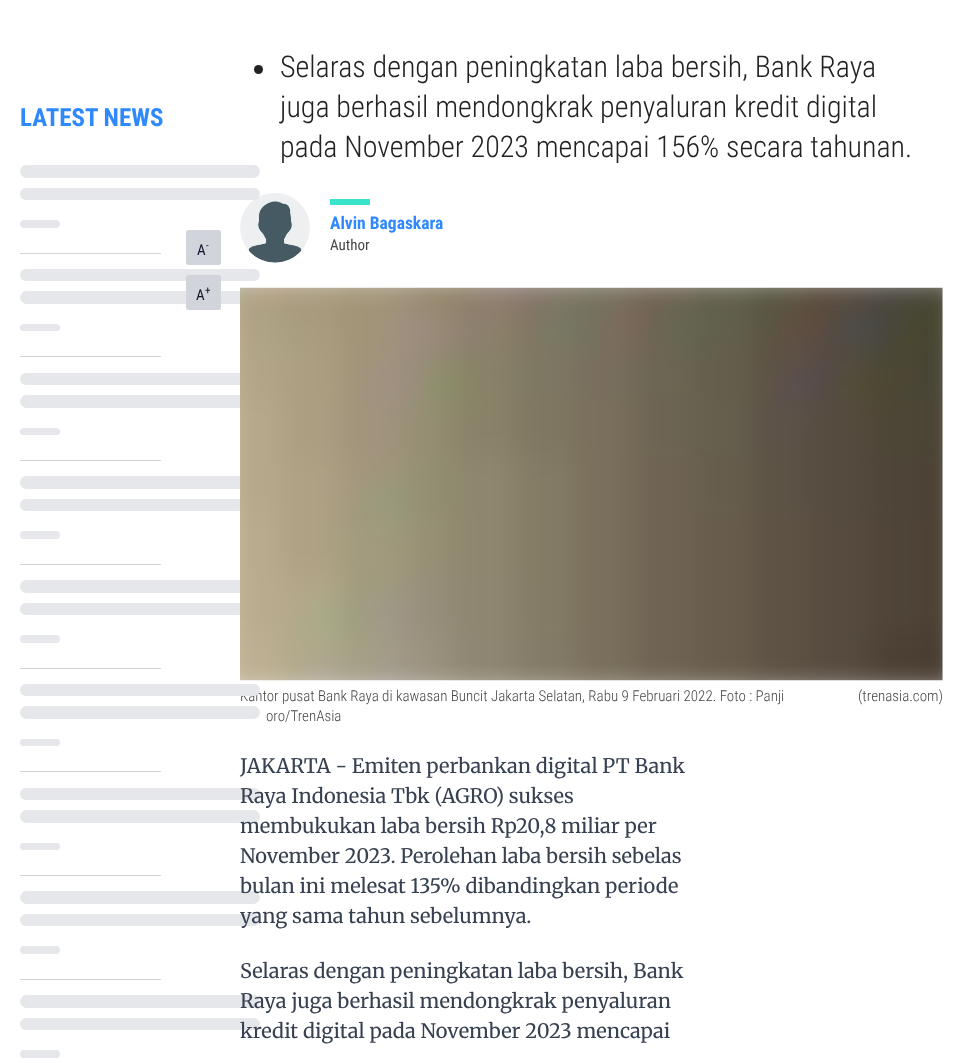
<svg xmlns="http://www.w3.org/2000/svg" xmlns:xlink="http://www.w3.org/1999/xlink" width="962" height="1058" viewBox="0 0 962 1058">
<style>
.cls-1{font:bold 25px Roboto Condensed;fill:#2f89fc}
.cls-2{font:15px Roboto Condensed;fill:#0f172a}
.cls-3{font:11px Roboto Condensed;fill:#0f172a}
.cls-4{font:300 30px Roboto Condensed;fill:#222222}
.cls-5{font:bold 17.5px Roboto Condensed;fill:#2f89fc}
.cls-6{font:15px Roboto Condensed;fill:#474747}
.cls-7{font:300 15px Roboto Condensed;fill:#474747}
.cls-8{font:20px Merriweather;fill:#374151}
</style>
<rect width="100%" height="100%" fill="#ffffff"/>
<rect fill="#d1d5db" x="20" y="253" width="141" height="1"/>
<rect fill="#e5e7eb" x="20" y="165" width="240" height="13" rx="6.5"/>
<image xlink:href="image0.png" x="240" y="193" width="70" height="70"/>
<rect fill="#e5e7eb" x="20" y="188" width="240" height="12" rx="6"/>
<rect fill="#e5e7eb" x="20" y="220" width="40" height="8" rx="4"/>
<rect fill="#d1d5db" x="20" y="356" width="141" height="1"/>
<rect fill="#e5e7eb" x="20" y="269" width="240" height="12" rx="6"/>
<rect fill="#e5e7eb" x="20" y="291" width="240" height="13" rx="6.5"/>
<rect fill="#e5e7eb" x="20" y="324" width="40" height="7" rx="3.5"/>
<rect fill="#d1d5db" x="20" y="460" width="141" height="1"/>
<rect fill="#e5e7eb" x="20" y="373" width="240" height="12" rx="6"/>
<rect fill="#e5e7eb" x="20" y="395" width="240" height="13" rx="6.5"/>
<rect fill="#e5e7eb" x="20" y="428" width="40" height="7" rx="3.5"/>
<rect fill="#d1d5db" x="20" y="564" width="141" height="1"/>
<rect fill="#e5e7eb" x="20" y="476" width="240" height="13" rx="6.5"/>
<rect fill="#e5e7eb" x="20" y="499" width="240" height="12" rx="6"/>
<rect fill="#e5e7eb" x="20" y="531" width="40" height="8" rx="4"/>
<rect fill="#d1d5db" x="20" y="668" width="141" height="1"/>
<rect fill="#e5e7eb" x="20" y="580" width="240" height="13" rx="6.5"/>
<rect fill="#e5e7eb" x="20" y="603" width="240" height="12" rx="6"/>
<rect fill="#e5e7eb" x="20" y="635" width="40" height="8" rx="4"/>
<rect fill="#d1d5db" x="20" y="771" width="141" height="1"/>
<rect fill="#e5e7eb" x="20" y="706" width="240" height="13" rx="6.5"/>
<rect fill="#e5e7eb" x="20" y="739" width="40" height="7" rx="3.5"/>
<rect fill="#d1d5db" x="20" y="875" width="141" height="1"/>
<rect fill="#e5e7eb" x="20" y="788" width="240" height="12" rx="6"/>
<rect fill="#e5e7eb" x="20" y="810" width="240" height="13" rx="6.5"/>
<rect fill="#e5e7eb" x="20" y="843" width="40" height="7" rx="3.5"/>
<rect fill="#d1d5db" x="20" y="979" width="141" height="1"/>
<rect fill="#e5e7eb" x="20" y="891" width="240" height="13" rx="6.5"/>
<rect fill="#e5e7eb" x="20" y="914" width="240" height="12" rx="6"/>
<rect fill="#e5e7eb" x="20" y="946" width="40" height="8" rx="4"/>
<rect fill="#e5e7eb" x="20" y="995" width="240" height="13" rx="6.5"/>
<rect fill="#e5e7eb" x="20" y="1018" width="240" height="12" rx="6"/>
<rect fill="#e5e7eb" x="20" y="1050" width="40" height="8" rx="4"/>
<rect fill="#d1d5db" x="186" y="230" width="35" height="35" rx="2.5"/>
<rect fill="#d1d5db" x="186" y="275" width="35" height="35" rx="2.5"/>
<circle fill="#222222" cx="258.5" cy="69.5" r="4.5"/>
<rect fill="#39e3cc" x="330" y="199" width="40" height="6"/>
<rect fill="#f3f4f6" x="240" y="288" width="703" height="392"/>
<image xlink:href="image1.png" x="240" y="287" width="703" height="394"/>
<text class="cls-1" x="20" y="126">LATEST NEWS</text>
<text class="cls-2" x="197" y="255">A</text>
<text class="cls-3" x="206" y="249">-</text>
<text class="cls-2" x="196" y="300">A</text>
<text class="cls-3" x="205" y="294">+</text>
<text class="cls-4"><tspan x="280" y="77">Selaras dengan peningkatan laba bersih, Bank Raya</tspan><tspan x="280" y="117">juga berhasil mendongkrak penyaluran kredit digital</tspan><tspan x="280" y="157">pada November 2023 mencapai 156% secara tahunan.</tspan></text>
<text class="cls-5" x="330" y="229">Alvin Bagaskara</text>
<text class="cls-6" x="330" y="250">Author</text>
<text class="cls-7" x="240" y="701">Kantor pusat Bank Raya di kawasan Buncit Jakarta Selatan, Rabu 9 Februari 2022. Foto : Panji</text>
<rect fill="#e5e7eb" x="20" y="684" width="240" height="12" rx="6"/>
<text class="cls-7" x="858" y="701">(trenasia.com)</text>
<text class="cls-7" x="266" y="721">oro/TrenAsia</text>
<text class="cls-8"><tspan x="240" y="773">JAKARTA - Emiten perbankan digital PT Bank</tspan><tspan x="240" y="803">Raya Indonesia Tbk (AGRO) sukses</tspan><tspan x="240" y="833">membukukan laba bersih Rp20,8 miliar per</tspan><tspan x="240" y="863">November 2023. Perolehan laba bersih sebelas</tspan><tspan x="240" y="893">bulan ini melesat 135% dibandingkan periode</tspan><tspan x="240" y="923">yang sama tahun sebelumnya.</tspan></text>
<text class="cls-8"><tspan x="240" y="978">Selaras dengan peningkatan laba bersih, Bank</tspan><tspan x="240" y="1008">Raya juga berhasil mendongkrak penyaluran</tspan><tspan x="240" y="1038">kredit digital pada November 2023 mencapai</tspan></text>
</svg>
